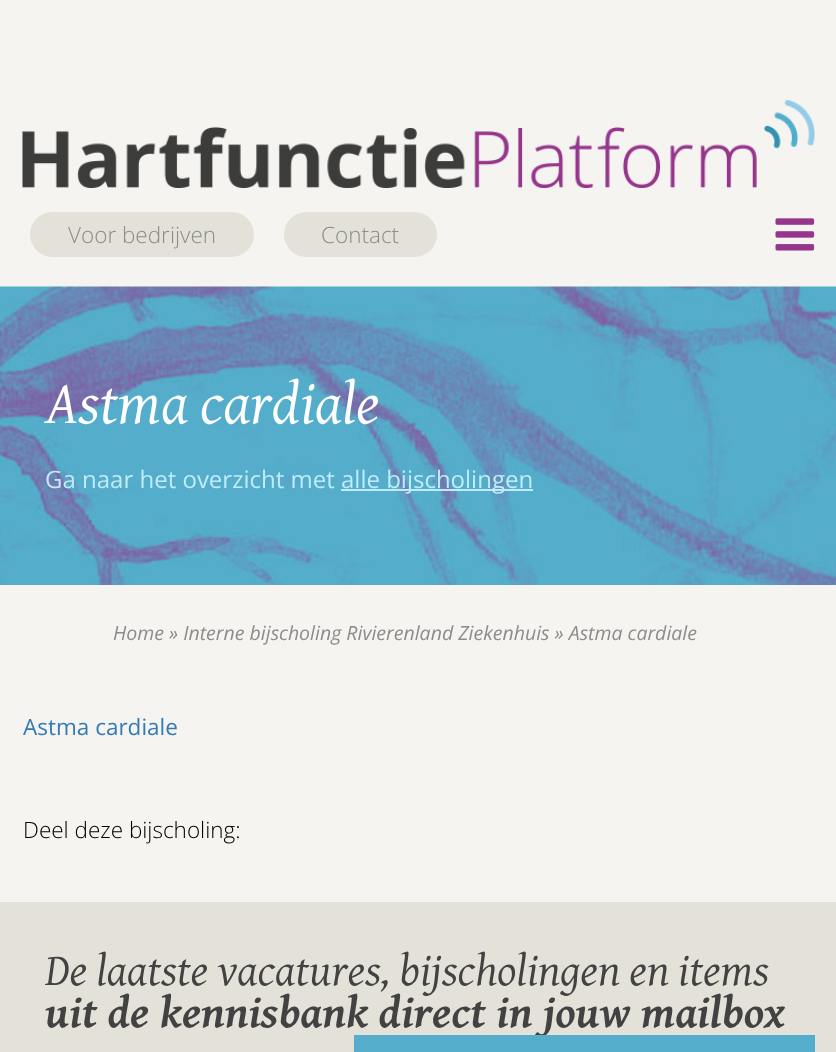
<svg xmlns="http://www.w3.org/2000/svg" xmlns:xlink="http://www.w3.org/1999/xlink" width="836" height="1052" viewBox="0 0 836 1052">
<style>
.cls-1{font:300 22.5px Open Sans;fill:#8c8c8c}
.cls-2{font:italic 60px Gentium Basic;fill:#ffffff}
.cls-3{font:24px Open Sans;fill:#c0ebf9}
.cls-4{font:italic 19.5px Open Sans;fill:#8c8c8c}
.cls-5{font:22.5px Open Sans;fill:#337ab7}
.cls-6{font:300 22.5px Open Sans;fill:#000000}
.cls-7{font:italic 45px Gentium Basic;fill:#424242}
.cls-8{font:italic bold 45px Gentium Basic;fill:#424242}
</style>
<rect width="100%" height="100%" fill="#f5f4f0"/>
<image xlink:href="image0.png" x="22" y="100" width="793" height="88"/>
<rect fill="#e3e1d8" x="30" y="212" width="224" height="45" rx="22.5"/>
<rect fill="#e3e1d8" x="284" y="212" width="153" height="45" rx="22.5"/>
<image xlink:href="image1.png" x="775" y="218" width="40" height="33"/>
<image xlink:href="image2.png" x="0" y="286" width="836" height="299"/>
<rect fill="#c0ebf9" x="341" y="489" width="192" height="2"/>
<rect fill="#e3e1d8" x="0" y="902" width="836" height="150"/>
<text class="cls-1" x="68" y="243">Voor bedrijven</text>
<text class="cls-1" x="321" y="243">Contact</text>
<text class="cls-2" x="45" y="423">Astma cardiale</text>
<text class="cls-3" x="45" y="488">Ga naar het overzicht met</text>
<text class="cls-3" x="341" y="488">alle bijscholingen</text>
<text class="cls-4" x="113" y="640">Home » Interne bijscholing Rivierenland Ziekenhuis » Astma cardiale</text>
<text class="cls-5" x="23" y="735">Astma cardiale</text>
<text class="cls-6" x="23" y="838">Deel deze bijscholing:</text>
<text class="cls-7" x="45" y="985">De laatste vacatures, bijscholingen en items</text>
<text class="cls-8" x="45" y="1027">uit de kennisbank direct in jouw mailbox</text>
<rect fill="#54adcb" x="354" y="1035" width="461" height="17"/>
</svg>
